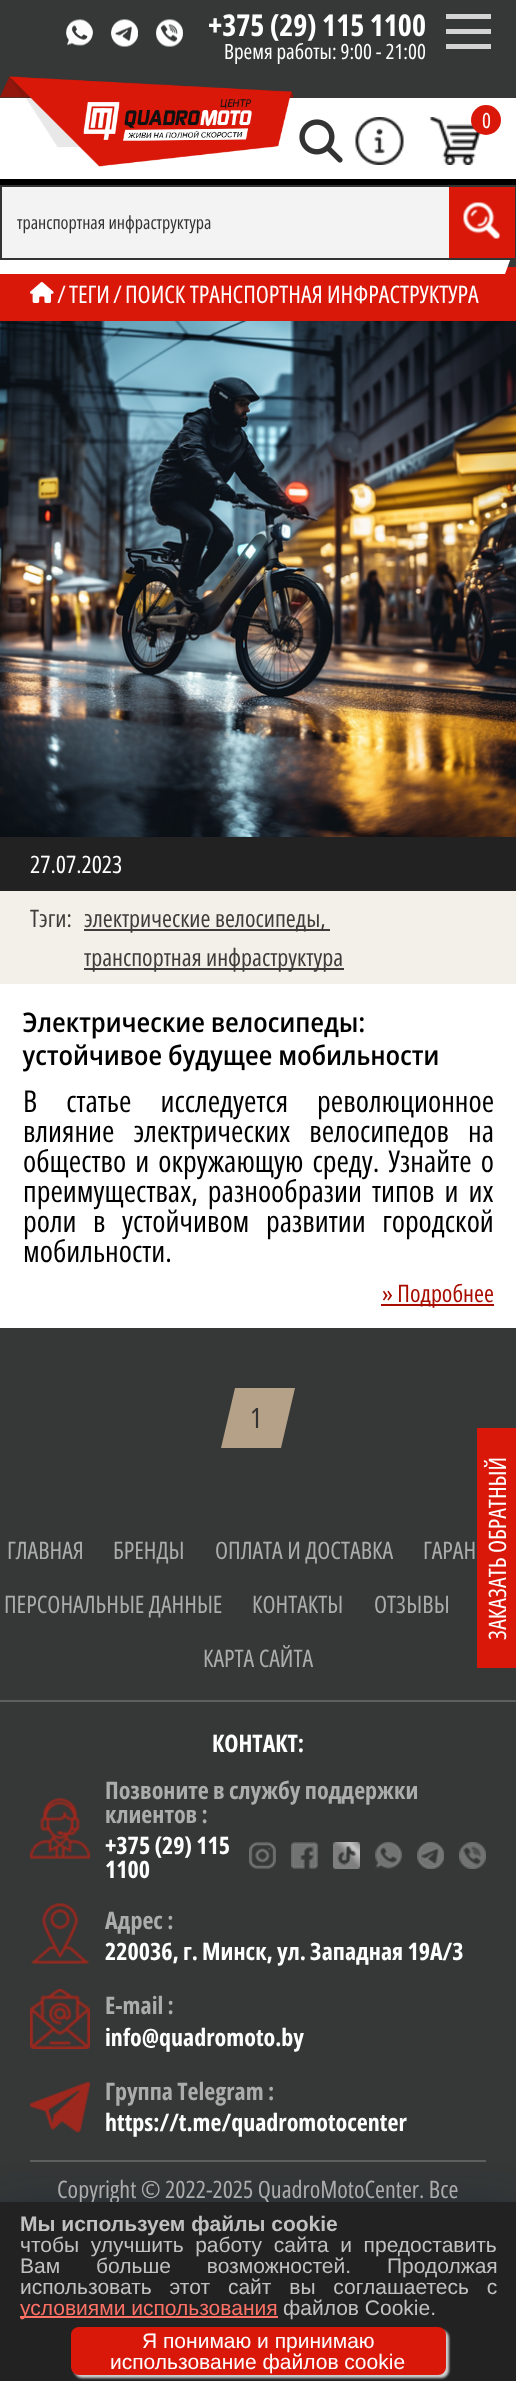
<svg xmlns="http://www.w3.org/2000/svg" xmlns:xlink="http://www.w3.org/1999/xlink" width="516" height="2381" viewBox="0 0 516 2381">
<style>
.cls-1{font:bold 30px Open Sans Condensed;fill:#ffffff}
.cls-2{font:21px Open Sans Condensed;fill:#ffffff}
.cls-3{font:18px Open Sans Condensed;fill:#333333}
.cls-4{font:24px Open Sans Condensed;fill:#ffffff}
.cls-5{font:24px Open Sans Condensed;fill:#3e3d3b}
.cls-6{font:30px Open Sans Condensed;fill:#000000}
.cls-7{font:24px Open Sans Condensed;fill:#a80c00}
.cls-8{font:28px Open Sans Condensed;fill:#333333}
.cls-9{font:24px Open Sans Condensed;fill:#acacac}
.cls-10{font:bold 24px Open Sans Condensed;fill:#ffffff}
.cls-11{font:bold 24px Open Sans Condensed;fill:#acacac}
.cls-12{font:bold 21px Liberation Sans;fill:#c1c1c1}
.cls-13{font:21px Liberation Sans;fill:#c1c1c1}
.cls-14{font:21px Liberation Sans;fill:#ff7065}
.cls-15{font:21px Liberation Sans;fill:#ffffff}
</style>
<rect width="100%" height="100%" fill="#353837"/>
<image xlink:href="image0.png" x="66" y="19" width="27" height="27"/>
<image xlink:href="image1.png" x="111" y="19" width="27" height="28"/>
<image xlink:href="image2.png" x="156" y="19" width="27" height="28"/>
<rect fill="#d3d3d3" x="446" y="29" width="45" height="5"/>
<rect fill="#d3d3d3" x="446" y="14" width="45" height="5"/>
<rect fill="#d3d3d3" x="446" y="44" width="45" height="5"/>
<rect fill="#ffffff" x="0" y="98" width="516" height="81"/>
<image xlink:href="image3.png" x="0" y="76" width="294" height="91"/>
<image xlink:href="image4.png" x="299" y="119" width="44" height="44"/>
<image xlink:href="image5.png" x="355" y="117" width="49" height="48"/>
<image xlink:href="image6.png" x="430" y="117" width="51" height="48"/>
<circle fill="#da1809" cx="486" cy="120" r="15"/>
<rect fill="#000000" x="0" y="179" width="516" height="6"/>
<rect fill="#da1809" x="0" y="267" width="516" height="54"/>
<path fill="#ffffff" d="M11 214H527L505 274H-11Z"/>
<rect fill="#f3f3f3" x="2" y="187" width="447" height="71"/>
<rect fill="#333333" x="0" y="185" width="516" height="2"/>
<rect fill="#333333" x="0" y="258" width="449" height="2"/>
<rect fill="#333333" x="0" y="185" width="2" height="75"/>
<rect fill="#da1809" x="449" y="187" width="66" height="71"/>
<rect fill="#333333" x="515" y="185" width="1" height="75"/>
<rect fill="#333333" x="449" y="258" width="67" height="2"/>
<image xlink:href="image7.png" x="463" y="202" width="37" height="37"/>
<image xlink:href="image8.png" x="30" y="282" width="24" height="21"/>
<rect fill="#ffffff" x="0" y="984" width="516" height="344"/>
<image xlink:href="image9.png" x="0" y="321" width="516" height="516"/>
<rect fill="#222222" x="0" y="837" width="516" height="54"/>
<rect fill="#f3efe9" x="0" y="891" width="516" height="93"/>
<rect fill="#3e3d3b" x="84" y="929" width="246" height="2"/>
<rect fill="#3e3d3b" x="84" y="968" width="260" height="2"/>
<image xlink:href="image10.png" x="23" y="1012" width="341" height="27"/>
<image xlink:href="image11.png" x="22" y="1044" width="416" height="28"/>
<rect fill="#a80c00" x="381" y="1304" width="113" height="2"/>
<path fill="#b5a187" d="M235 1388H295L281 1448H221Z"/>
<rect fill="#da1809" x="477" y="1428" width="39" height="240"/>
<rect fill="#5d605f" x="0" y="1700" width="516" height="2"/>
<image xlink:href="image12.png" x="30" y="1798" width="60" height="61"/>
<image xlink:href="image13.png" x="249" y="1842" width="27" height="27"/>
<image xlink:href="image14.png" x="291" y="1842" width="27" height="27"/>
<image xlink:href="image15.png" x="333" y="1842" width="27" height="27"/>
<image xlink:href="image16.png" x="375" y="1842" width="27" height="27"/>
<image xlink:href="image17.png" x="417" y="1842" width="27" height="27"/>
<image xlink:href="image18.png" x="459" y="1842" width="27" height="27"/>
<image xlink:href="image19.png" x="31" y="1903" width="58" height="61"/>
<image xlink:href="image20.png" x="30" y="1989" width="60" height="60"/>
<image xlink:href="image21.png" x="30" y="2081" width="60" height="52"/>
<rect fill="#5d605f" x="30" y="2160" width="456" height="2"/>
<rect fill="#00143c" filter="blur(28.5px)" x="0" y="2231" width="516" height="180"/>
<text class="cls-1" x="208" y="36">+375 (29) 115 1100</text>
<text class="cls-2" x="224" y="59">Время работы: 9:00 - 21:00</text>
<text class="cls-2" x="482" y="128">0</text>
<text class="cls-3" x="17" y="229">транспортная инфраструктура</text>
<text class="cls-4" x="57" y="303">/</text>
<text class="cls-4" x="69" y="303">ТЕГИ</text>
<text class="cls-4" x="113" y="303">/</text>
<text class="cls-4" x="125" y="303">ПОИСК ТРАНСПОРТНАЯ ИНФРАСТРУКТУРА</text>
<text class="cls-4" x="30" y="873">27.07.2023</text>
<text class="cls-5" x="30" y="927">Тэги:</text>
<text class="cls-5"><tspan x="84" y="927">электрические велосипеды,</tspan><tspan x="84" y="966">транспортная инфраструктура</tspan></text>
<text class="cls-6"><tspan x="23" y="1112" word-spacing="23.5">В статье исследуется революционное</tspan><tspan x="23" y="1142" word-spacing="13.5">влияние электрических велосипедов на</tspan><tspan x="23" y="1172" word-spacing="3.5">общество и окружающую среду. Узнайте о</tspan><tspan x="23" y="1202" word-spacing="4.5">преимуществах, разнообразии типов и их</tspan><tspan x="23" y="1232" word-spacing="11">роли в устойчивом развитии городской</tspan><tspan x="23" y="1262">мобильности.</tspan></text>
<text class="cls-7" x="382" y="1302">» Подробнее</text>
<text class="cls-8" x="250" y="1428">1</text>
<text class="cls-9" x="7" y="1559">ГЛАВНАЯ</text>
<text class="cls-9" x="113" y="1559">БРЕНДЫ</text>
<text class="cls-9" x="215" y="1559">ОПЛАТА И ДОСТАВКА</text>
<text class="cls-9" x="423" y="1559">ГАРАН</text>
<text class="cls-9" x="4" y="1613">ПЕРСОНАЛЬНЫЕ ДАННЫЕ</text>
<text class="cls-9" x="252" y="1613">КОНТАКТЫ</text>
<text class="cls-9" x="374" y="1613">ОТЗЫВЫ</text>
<text class="cls-9" x="203" y="1667">КАРТА САЙТА</text>
<text class="cls-4" x="506" y="1640" transform="rotate(-90 506 1640)">ЗАКАЗАТЬ ОБРАТНЫЙ</text>
<text class="cls-10" x="212" y="1752">КОНТАКТ:</text>
<text class="cls-11"><tspan x="105" y="1799">Позвоните в службу поддержки</tspan><tspan x="105" y="1823">клиентов :</tspan></text>
<text class="cls-10"><tspan x="105" y="1854">+375 (29) 115</tspan><tspan x="105" y="1878">1100</tspan></text>
<text class="cls-11" x="105" y="1929">Адрес :</text>
<text class="cls-10" x="105" y="1960">220036, г. Минск, ул. Западная 19А/3</text>
<text class="cls-11" x="105" y="2014">E-mail :</text>
<text class="cls-10" x="105" y="2046">info@quadromoto.by</text>
<text class="cls-11" x="105" y="2100">Группа Telegram :</text>
<text class="cls-10" x="105" y="2131">https://t.me/quadromotocenter</text>
<text class="cls-9" x="57" y="2198">Copyright © 2022-2025 QuadroMotoCenter. Все</text>
<rect fill="#222222" x="0" y="2202" width="516" height="179"/>
<text class="cls-12" x="20" y="2231">Мы используем файлы cookie</text>
<text class="cls-13"><tspan x="20" y="2252" word-spacing="5.75">чтобы улучшить работу сайта и предоставить</tspan><tspan x="20" y="2273" word-spacing="30">Вам больше возможностей. Продолжая</tspan><tspan x="20" y="2294" word-spacing="12">использовать этот сайт вы соглашаетесь с</tspan></text>
<rect fill="#ff7065" x="20" y="2316" width="258" height="2"/>
<text class="cls-14" x="20" y="2315">условиями использования</text>
<text class="cls-13" x="283" y="2315">файлов Cookie.</text>
<rect fill="#cccccc" filter="blur(1px)" x="74" y="2330" width="375" height="48" rx="8"/>
<rect fill="#da1809" x="71" y="2327" width="375" height="48" rx="8"/>
<text class="cls-15" x="142" y="2348">Я понимаю и принимаю</text>
<text class="cls-15" x="110" y="2369">использование файлов cookie</text>
</svg>
